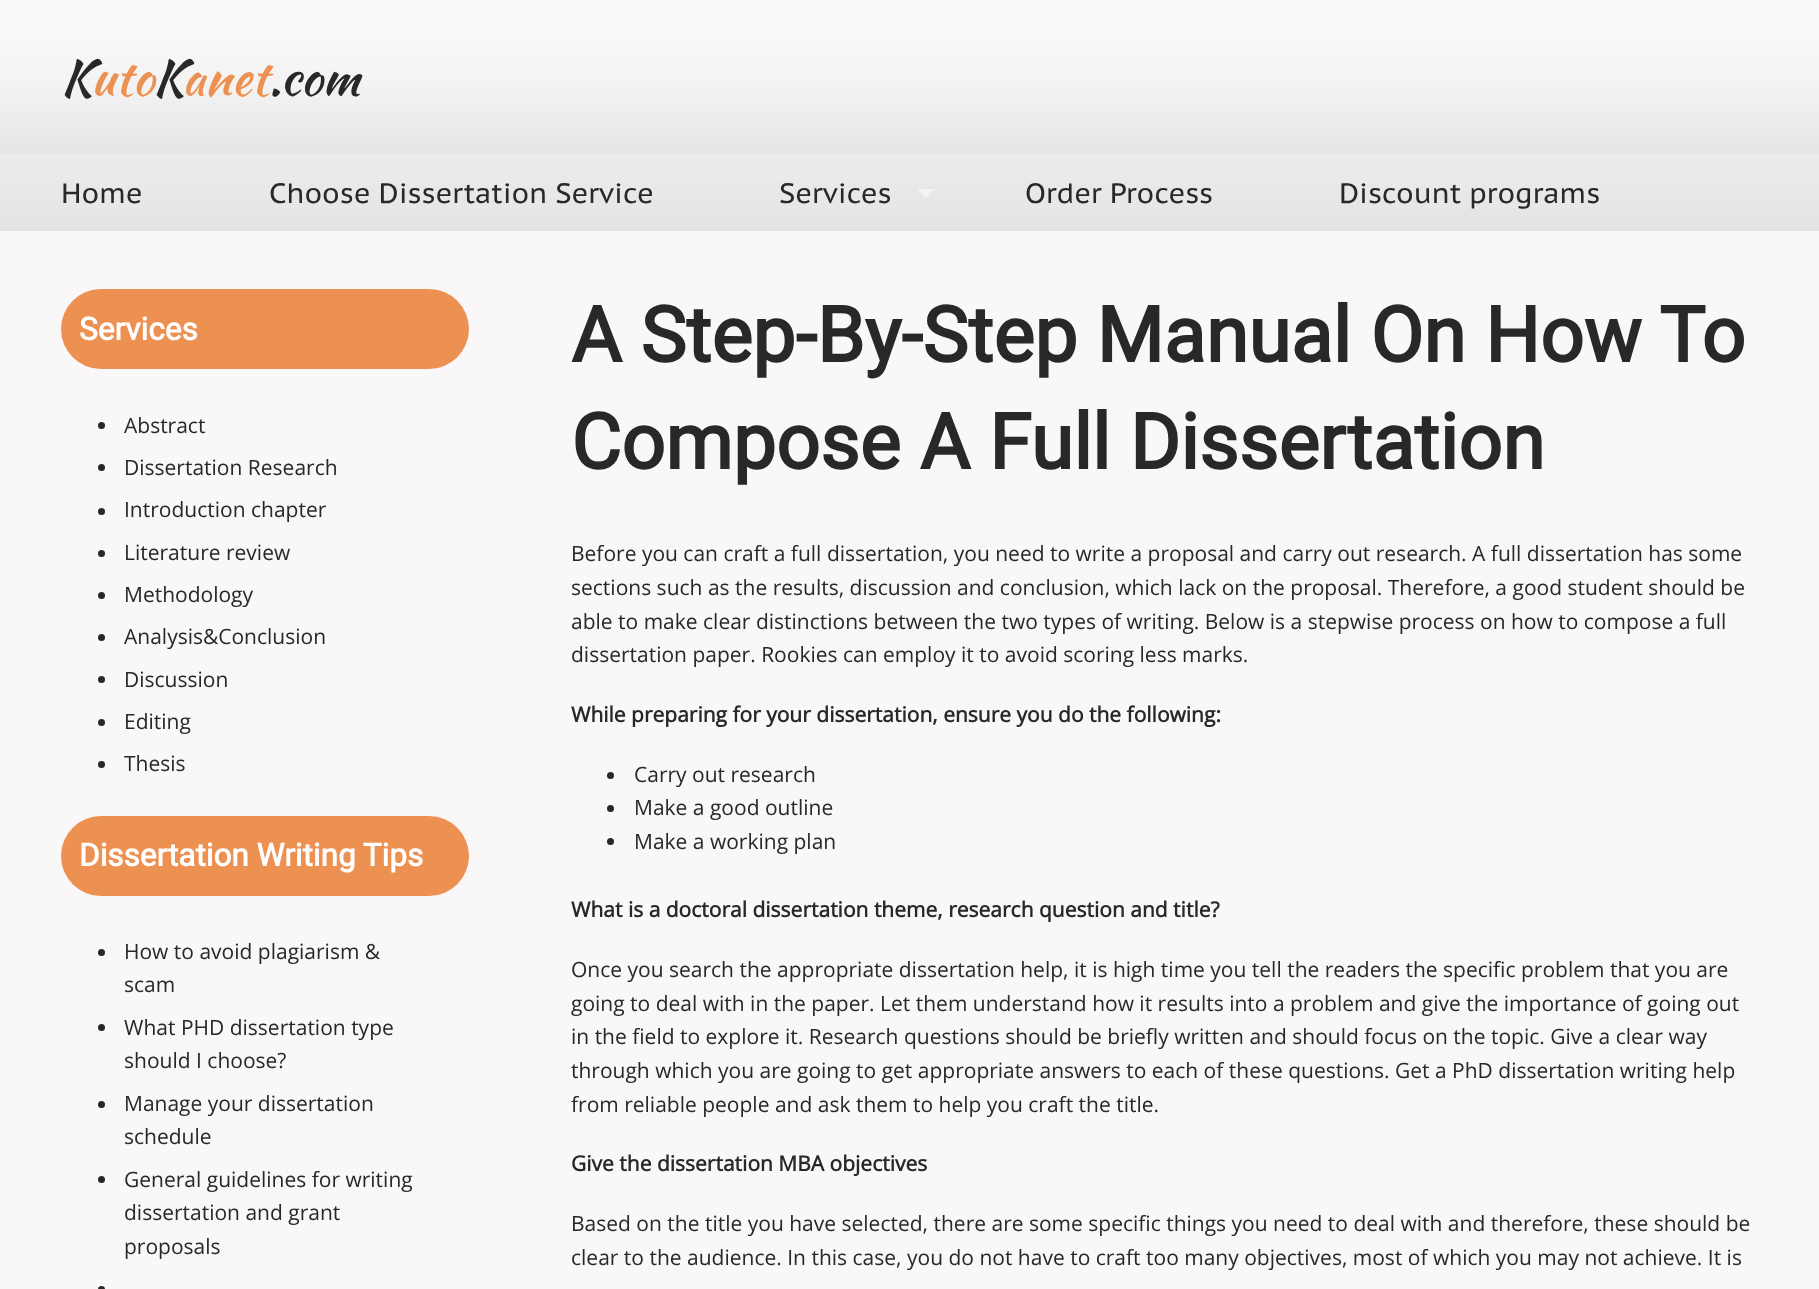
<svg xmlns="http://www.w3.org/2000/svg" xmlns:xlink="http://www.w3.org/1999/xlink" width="1819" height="1289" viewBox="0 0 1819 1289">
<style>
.cls-1{font:49px Kaushan Script;fill:#282828}
.cls-2{font:49px Kaushan Script;fill:#ed9153}
.cls-3{font:28px PT Sans Caption;fill:#282828}
.cls-4{font:bold 31.5px Roboto;fill:#ffffff}
.cls-5{font:21px Open Sans;fill:#282828}
.cls-6{font:bold 77px Roboto;fill:#282828}
.cls-7{font:bold 21px Open Sans;fill:#282828}
</style>
<rect width="100%" height="100%" fill="#ffffff"/>
<image xlink:href="image0.png" x="0" y="0" width="1819" height="154"/>
<image xlink:href="image1.png" x="0" y="154" width="1819" height="77"/>
<path fill="#f3f3f3" d="M917 189H934.5L926 198Z"/>
<rect fill="#f9f7f7" x="0" y="231" width="1819" height="1058"/>
<rect fill="#ed9153" x="61" y="289" width="408" height="80" rx="40"/>
<circle fill="#282828" cx="101.5" cy="425.5" r="3.5"/>
<circle fill="#282828" cx="101.5" cy="467.5" r="3.5"/>
<circle fill="#282828" cx="101.5" cy="511.5" r="3.5"/>
<circle fill="#282828" cx="101.5" cy="553.5" r="3.5"/>
<circle fill="#282828" cx="101.5" cy="595.5" r="3.5"/>
<circle fill="#282828" cx="101.5" cy="637.5" r="3.5"/>
<circle fill="#282828" cx="101.5" cy="679.5" r="3.5"/>
<circle fill="#282828" cx="101.5" cy="722.5" r="3.5"/>
<circle fill="#282828" cx="101.5" cy="764.5" r="3.5"/>
<rect fill="#ed9153" x="61" y="816" width="408" height="80" rx="40"/>
<circle fill="#282828" cx="101.5" cy="952.5" r="3.5"/>
<circle fill="#282828" cx="101.5" cy="1027.5" r="3.5"/>
<circle fill="#282828" cx="101.5" cy="1104.5" r="3.5"/>
<circle fill="#282828" cx="101.5" cy="1179.5" r="3.5"/>
<circle fill="#282828" cx="101.5" cy="1289.5" r="3.5"/>
<circle fill="#282828" cx="610.5" cy="775.5" r="3.5"/>
<circle fill="#282828" cx="610.5" cy="808.5" r="3.5"/>
<circle fill="#282828" cx="610.5" cy="841.5" r="3.5"/>
<text class="cls-1" x="61" y="95">K</text>
<text class="cls-2" x="91" y="95">uto</text>
<text class="cls-1" x="153" y="95">K</text>
<text class="cls-2" x="182" y="95">anet</text>
<text class="cls-1" x="269" y="95">.com</text>
<text class="cls-3" x="61" y="203">Home</text>
<text class="cls-3" x="269" y="203">Choose Dissertation Service</text>
<text class="cls-3" x="779" y="203">Services</text>
<text class="cls-3" x="1025" y="203">Order Process</text>
<text class="cls-3" x="1339" y="203">Discount programs</text>
<text class="cls-4" x="79" y="340">Services</text>
<text class="cls-5" x="124" y="433">Abstract</text>
<text class="cls-5" x="124" y="475">Dissertation Research</text>
<text class="cls-5" x="124" y="517">Introduction chapter</text>
<text class="cls-5" x="124" y="560">Literature review</text>
<text class="cls-5" x="124" y="602">Methodology</text>
<text class="cls-5" x="124" y="644">Analysis&amp;Conclusion</text>
<text class="cls-5" x="124" y="687">Discussion</text>
<text class="cls-5" x="124" y="729">Editing</text>
<text class="cls-5" x="124" y="771">Thesis</text>
<text class="cls-4" x="79" y="866">Dissertation Writing Tips</text>
<text class="cls-5"><tspan x="124" y="959">How to avoid plagiarism &amp;</tspan><tspan x="124" y="992">scam</tspan></text>
<text class="cls-5"><tspan x="124" y="1035">What PHD dissertation type</tspan><tspan x="124" y="1068">should I choose?</tspan></text>
<text class="cls-5"><tspan x="124" y="1111">Manage your dissertation</tspan><tspan x="124" y="1144">schedule</tspan></text>
<text class="cls-5"><tspan x="124" y="1187">General guidelines for writing</tspan><tspan x="124" y="1220">dissertation and grant</tspan><tspan x="124" y="1254">proposals</tspan></text>
<text class="cls-6"><tspan x="571" y="362">A Step-By-Step Manual On How To</tspan><tspan x="571" y="469">Compose A Full Dissertation</tspan></text>
<text class="cls-5"><tspan x="571" y="561">Before you can craft a full dissertation, you need to write a proposal and carry out research. A full dissertation has some</tspan><tspan x="571" y="595">sections such as the results, discussion and conclusion, which lack on the proposal. Therefore, a good student should be</tspan><tspan x="571" y="629">able to make clear distinctions between the two types of writing. Below is a stepwise process on how to compose a full</tspan><tspan x="571" y="662">dissertation paper. Rookies can employ it to avoid scoring less marks.</tspan></text>
<text class="cls-7" x="571" y="722">While preparing for your dissertation, ensure you do the following:</text>
<text class="cls-5"><tspan x="634" y="782">Carry out research</tspan><tspan x="634" y="815">Make a good outline</tspan><tspan x="634" y="849">Make a working plan</tspan></text>
<text class="cls-7" x="571" y="917">What is a doctoral dissertation theme, research question and title?</text>
<text class="cls-5"><tspan x="571" y="977">Once you search the appropriate dissertation help, it is high time you tell the readers the specific problem that you are</tspan><tspan x="571" y="1011">going to deal with in the paper. Let them understand how it results into a problem and give the importance of going out</tspan><tspan x="571" y="1044">in the field to explore it. Research questions should be briefly written and should focus on the topic. Give a clear way</tspan><tspan x="571" y="1078">through which you are going to get appropriate answers to each of these questions. Get a PhD dissertation writing help</tspan><tspan x="571" y="1112">from reliable people and ask them to help you craft the title.</tspan></text>
<text class="cls-7" x="571" y="1171">Give the dissertation MBA objectives</text>
<text class="cls-5"><tspan x="571" y="1231">Based on the title you have selected, there are some specific things you need to deal with and therefore, these should be</tspan><tspan x="571" y="1265">clear to the audience. In this case, you do not have to craft too many objectives, most of which you may not achieve. It is</tspan></text>
</svg>
